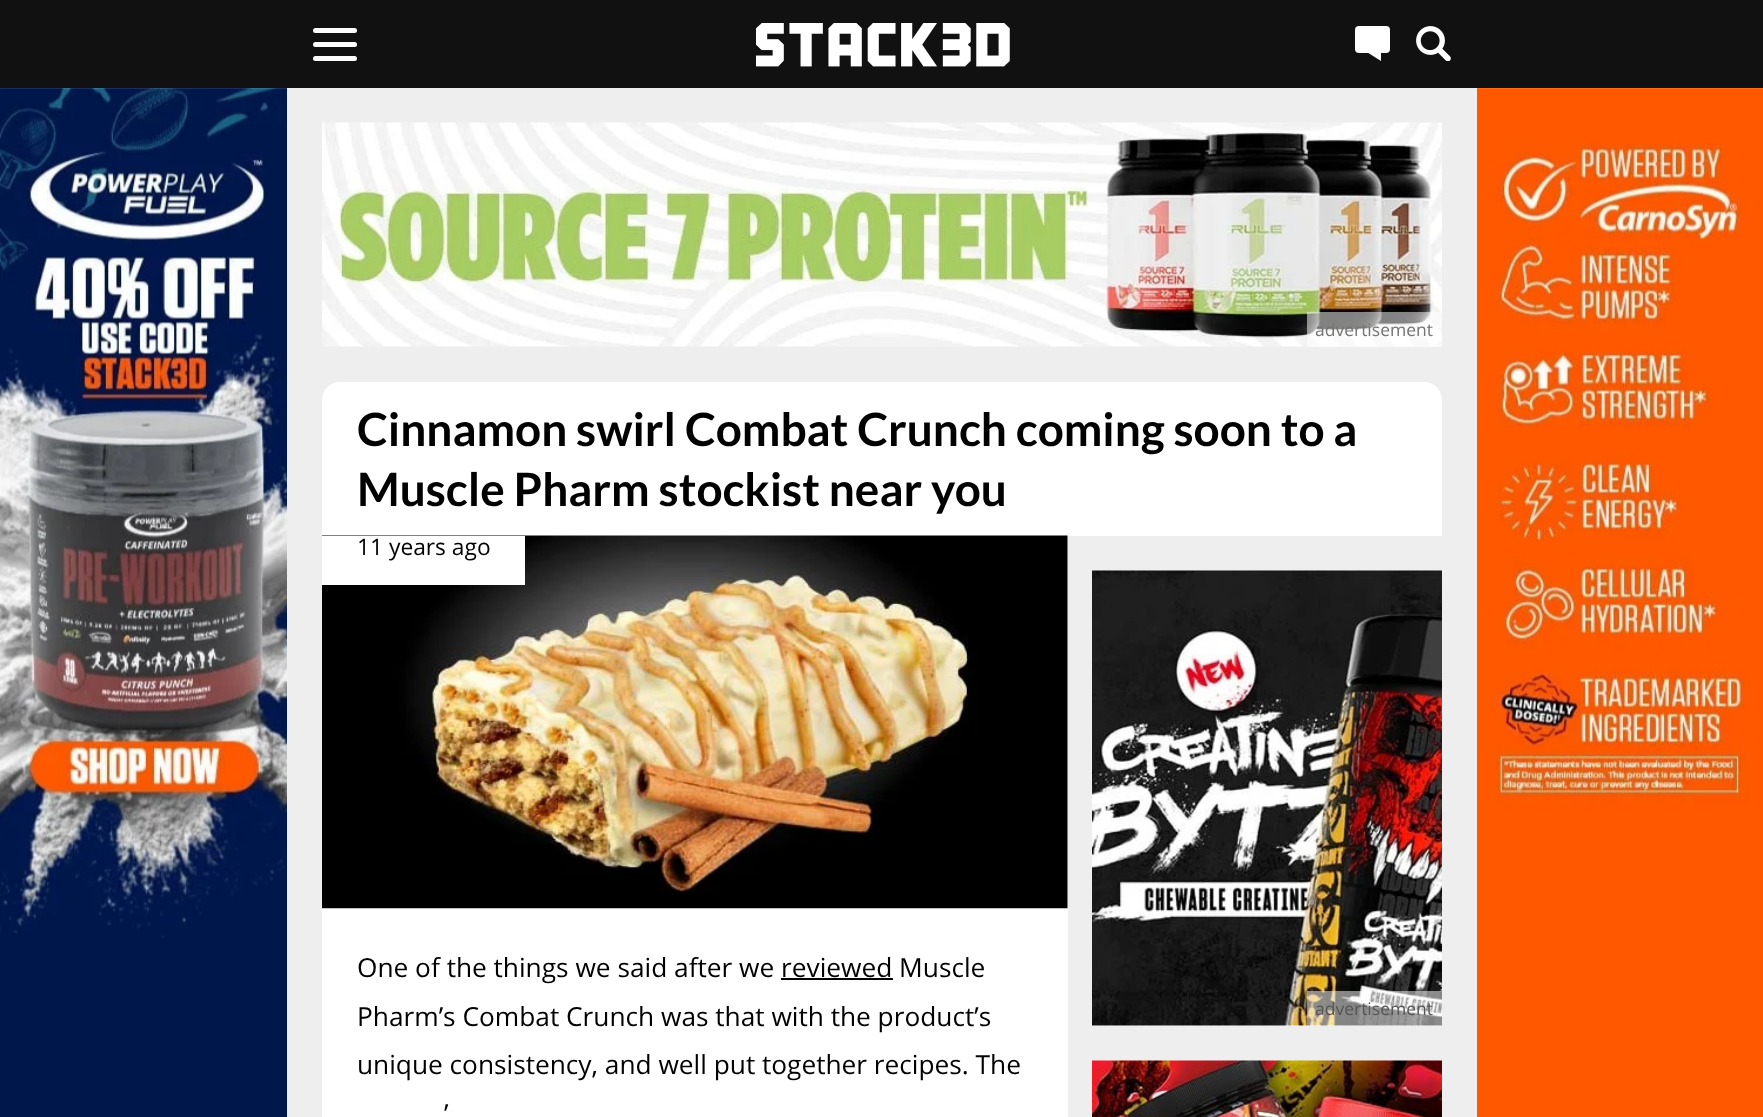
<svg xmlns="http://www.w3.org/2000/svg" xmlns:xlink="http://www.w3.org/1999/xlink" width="1763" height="1117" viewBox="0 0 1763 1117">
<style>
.cls-1{font:17.5px Open Sans;fill:#747474}
.cls-2{font:bold 45.9px Lato;fill:#000000}
.cls-3{font:22.75px Open Sans;fill:#000000}
.cls-4{font:26.25px Open Sans;fill:#000000}
.cls-5{font:17.5px Open Sans;fill:#565655}
</style>
<rect width="100%" height="100%" fill="#ffffff"/>
<image xlink:href="image0.png" x="0" y="88" width="1763" height="1029"/>
<rect fill="#111111" x="0" y="0" width="1763" height="88"/>
<rect fill="#ffffff" x="313" y="42" width="44" height="5" rx="2.5"/>
<rect fill="#ffffff" x="313" y="28" width="44" height="5" rx="2.5"/>
<rect fill="#ffffff" x="313" y="56" width="44" height="5" rx="2.5"/>
<image xlink:href="image1.png" x="756" y="23" width="254" height="44"/>
<rect fill="#ffffff" x="1355" y="26" width="35" height="27" rx="4"/>
<path fill="#ffffff" d="M1381 61V52.5H1367.5Z"/>
<image xlink:href="image2.png" x="1416" y="26" width="35" height="35"/>
<rect fill="#eeeeee" x="287" y="88" width="1190" height="1029"/>
<image xlink:href="image3.png" x="322" y="122" width="1120" height="225"/>
<rect fill="#ffffff" fill-opacity="0.5" x="1307" y="312" width="135" height="35"/>
<path fill="#ffffff" d="M340 382H1424C1434 382 1442 390 1442 400V536H322V400C322 390 330 382 340 382Z"/>
<rect fill="#ffffff" x="322" y="536" width="746" height="581"/>
<image xlink:href="image4.png" x="322" y="535" width="746" height="374"/>
<rect fill="#ffffff" x="322" y="536" width="203" height="49"/>
<rect fill="#000000" x="781" y="978" width="112" height="2"/>
<rect fill="#ffffff" x="1092" y="1025" width="350" height="1"/>
<image xlink:href="image5.png" x="1092" y="570" width="350" height="456"/>
<rect fill="#ffffff" fill-opacity="0.5" x="1307" y="991" width="135" height="35"/>
<image xlink:href="image6.png" x="1092" y="1060" width="350" height="57"/>
<text class="cls-1" x="1315" y="336">advertisement</text>
<text class="cls-2"><tspan x="357" y="446">Cinnamon swirl Combat Crunch coming soon to a</tspan><tspan x="357" y="506">Muscle Pharm stockist near you</tspan></text>
<text class="cls-3" x="357" y="555">11 years ago</text>
<text class="cls-4"><tspan x="357" y="977">One of the things we said after we reviewed Muscle</tspan><tspan x="357" y="1026">Pharm’s Combat Crunch was that with the product’s</tspan><tspan x="357" y="1074">unique consistency, and well put together recipes. The</tspan></text>
<text class="cls-4" x="444" y="1123">’</text>
<text class="cls-5" x="1315" y="1015">advertisement</text>
</svg>
